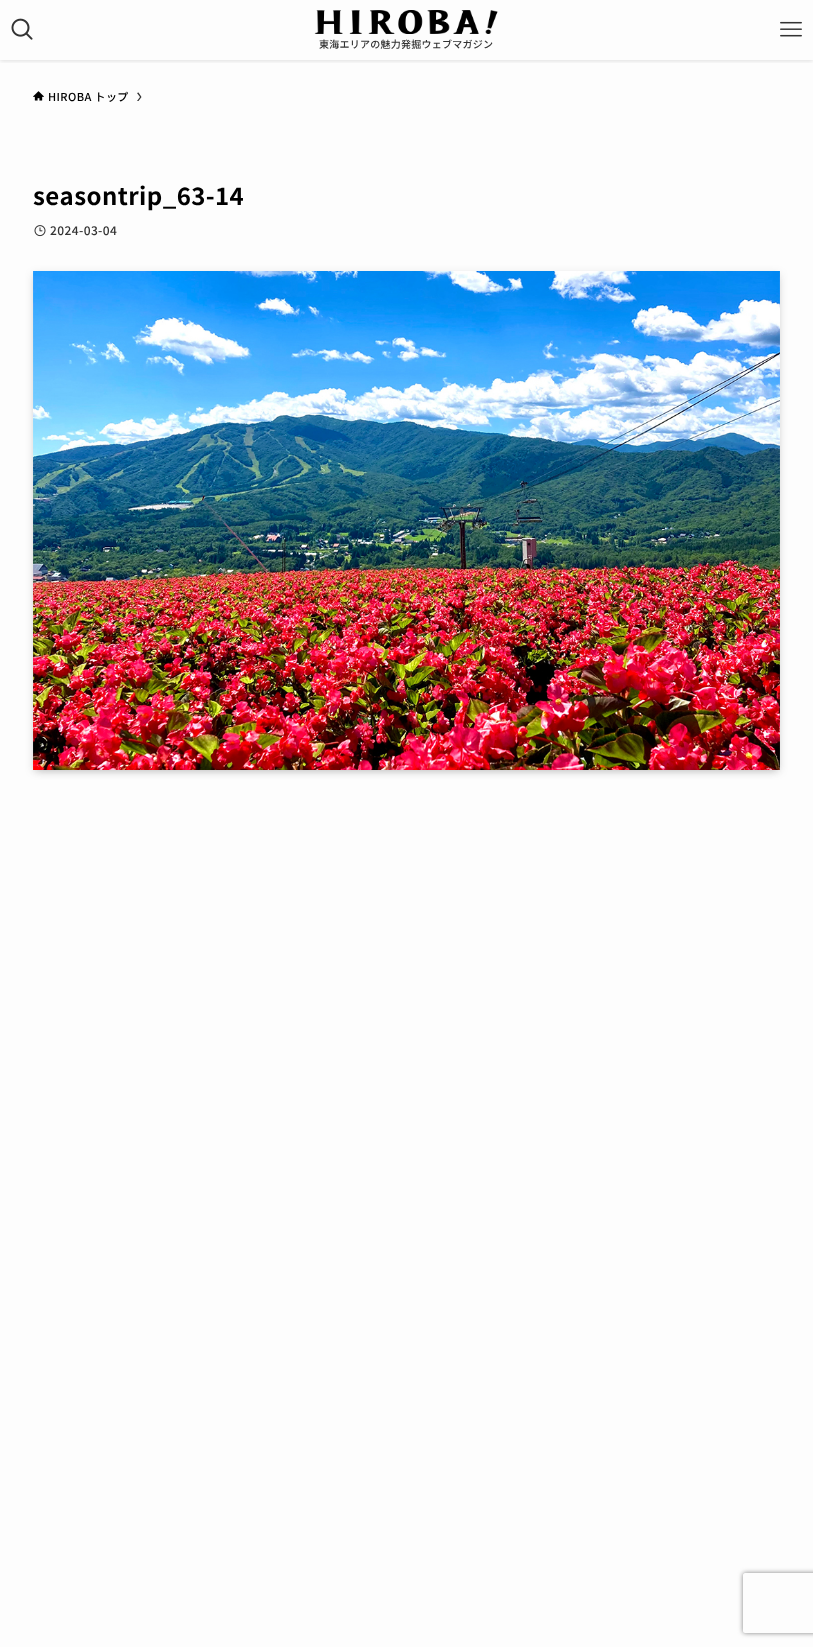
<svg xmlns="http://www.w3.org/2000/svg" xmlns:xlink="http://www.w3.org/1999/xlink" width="813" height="1647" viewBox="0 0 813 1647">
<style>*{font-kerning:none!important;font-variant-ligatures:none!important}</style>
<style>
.cls-1{font:500 10px Noto Sans JP;letter-spacing:0.25px;fill:#333333}
.cls-2{font:500 11px Noto Sans JP;letter-spacing:0.4px;fill:#000000}
.cls-3{font:bold 24px Noto Sans JP;letter-spacing:0.4px;fill:#000000}
.cls-4{font:500 12px Noto Sans JP;letter-spacing:0.4px;fill:#333333}
</style>
<defs>
<clipPath id="clip1"><rect x="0" y="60" width="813" height="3"/></clipPath>
<clipPath id="clip2"><path d="M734 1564H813V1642H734ZM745 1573H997C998 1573 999 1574 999 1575V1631C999 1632 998 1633 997 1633H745C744 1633 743 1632 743 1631V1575C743 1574 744 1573 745 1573Z" clip-rule="evenodd"/></clipPath>
</defs>
<rect width="100%" height="100%" fill="#fdfdfd"/>
<g clip-path="url(#clip1)">
<rect fill="#000000" fill-opacity="0.12" filter="blur(2px)" x="0" y="1" width="813" height="60"/>
</g>
<image xlink:href="image0.png" x="11" y="18" width="22" height="22"/>
<image xlink:href="image1.png" x="780" y="21" width="22" height="16"/>
<image xlink:href="image2.png" x="314" y="10" width="184" height="24"/>
<image xlink:href="image3.png" x="33" y="91" width="11" height="10"/>
<path fill="#333333" d="M138.5 92.5L137 93L140 97L137 101H138.5L141.5 97Z"/>
<image xlink:href="image4.png" x="34" y="225" width="12" height="12"/>
<rect fill="#000000" fill-opacity="0.2" filter="blur(4px)" x="37" y="279" width="739" height="491"/>
<rect fill="#000000" fill-opacity="0.1" filter="blur(4px)" x="33" y="273" width="747" height="499"/>
<image xlink:href="image5.png" x="33" y="271" width="747" height="499"/>
<g clip-path="url(#clip2)">
<rect fill="#808080" filter="blur(2.5px)" x="743" y="1573" width="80" height="60" rx="2"/>
</g>
<text class="cls-1" x="319" y="48">東海エリアの魅力発掘ウェブマガジン</text>
<text class="cls-2" x="48" y="101">HIROBA トップ</text>
<text class="cls-3" x="33" y="205">seasontrip_63-14</text>
<text class="cls-4" x="50" y="235">2024-03-04</text>
</svg>
